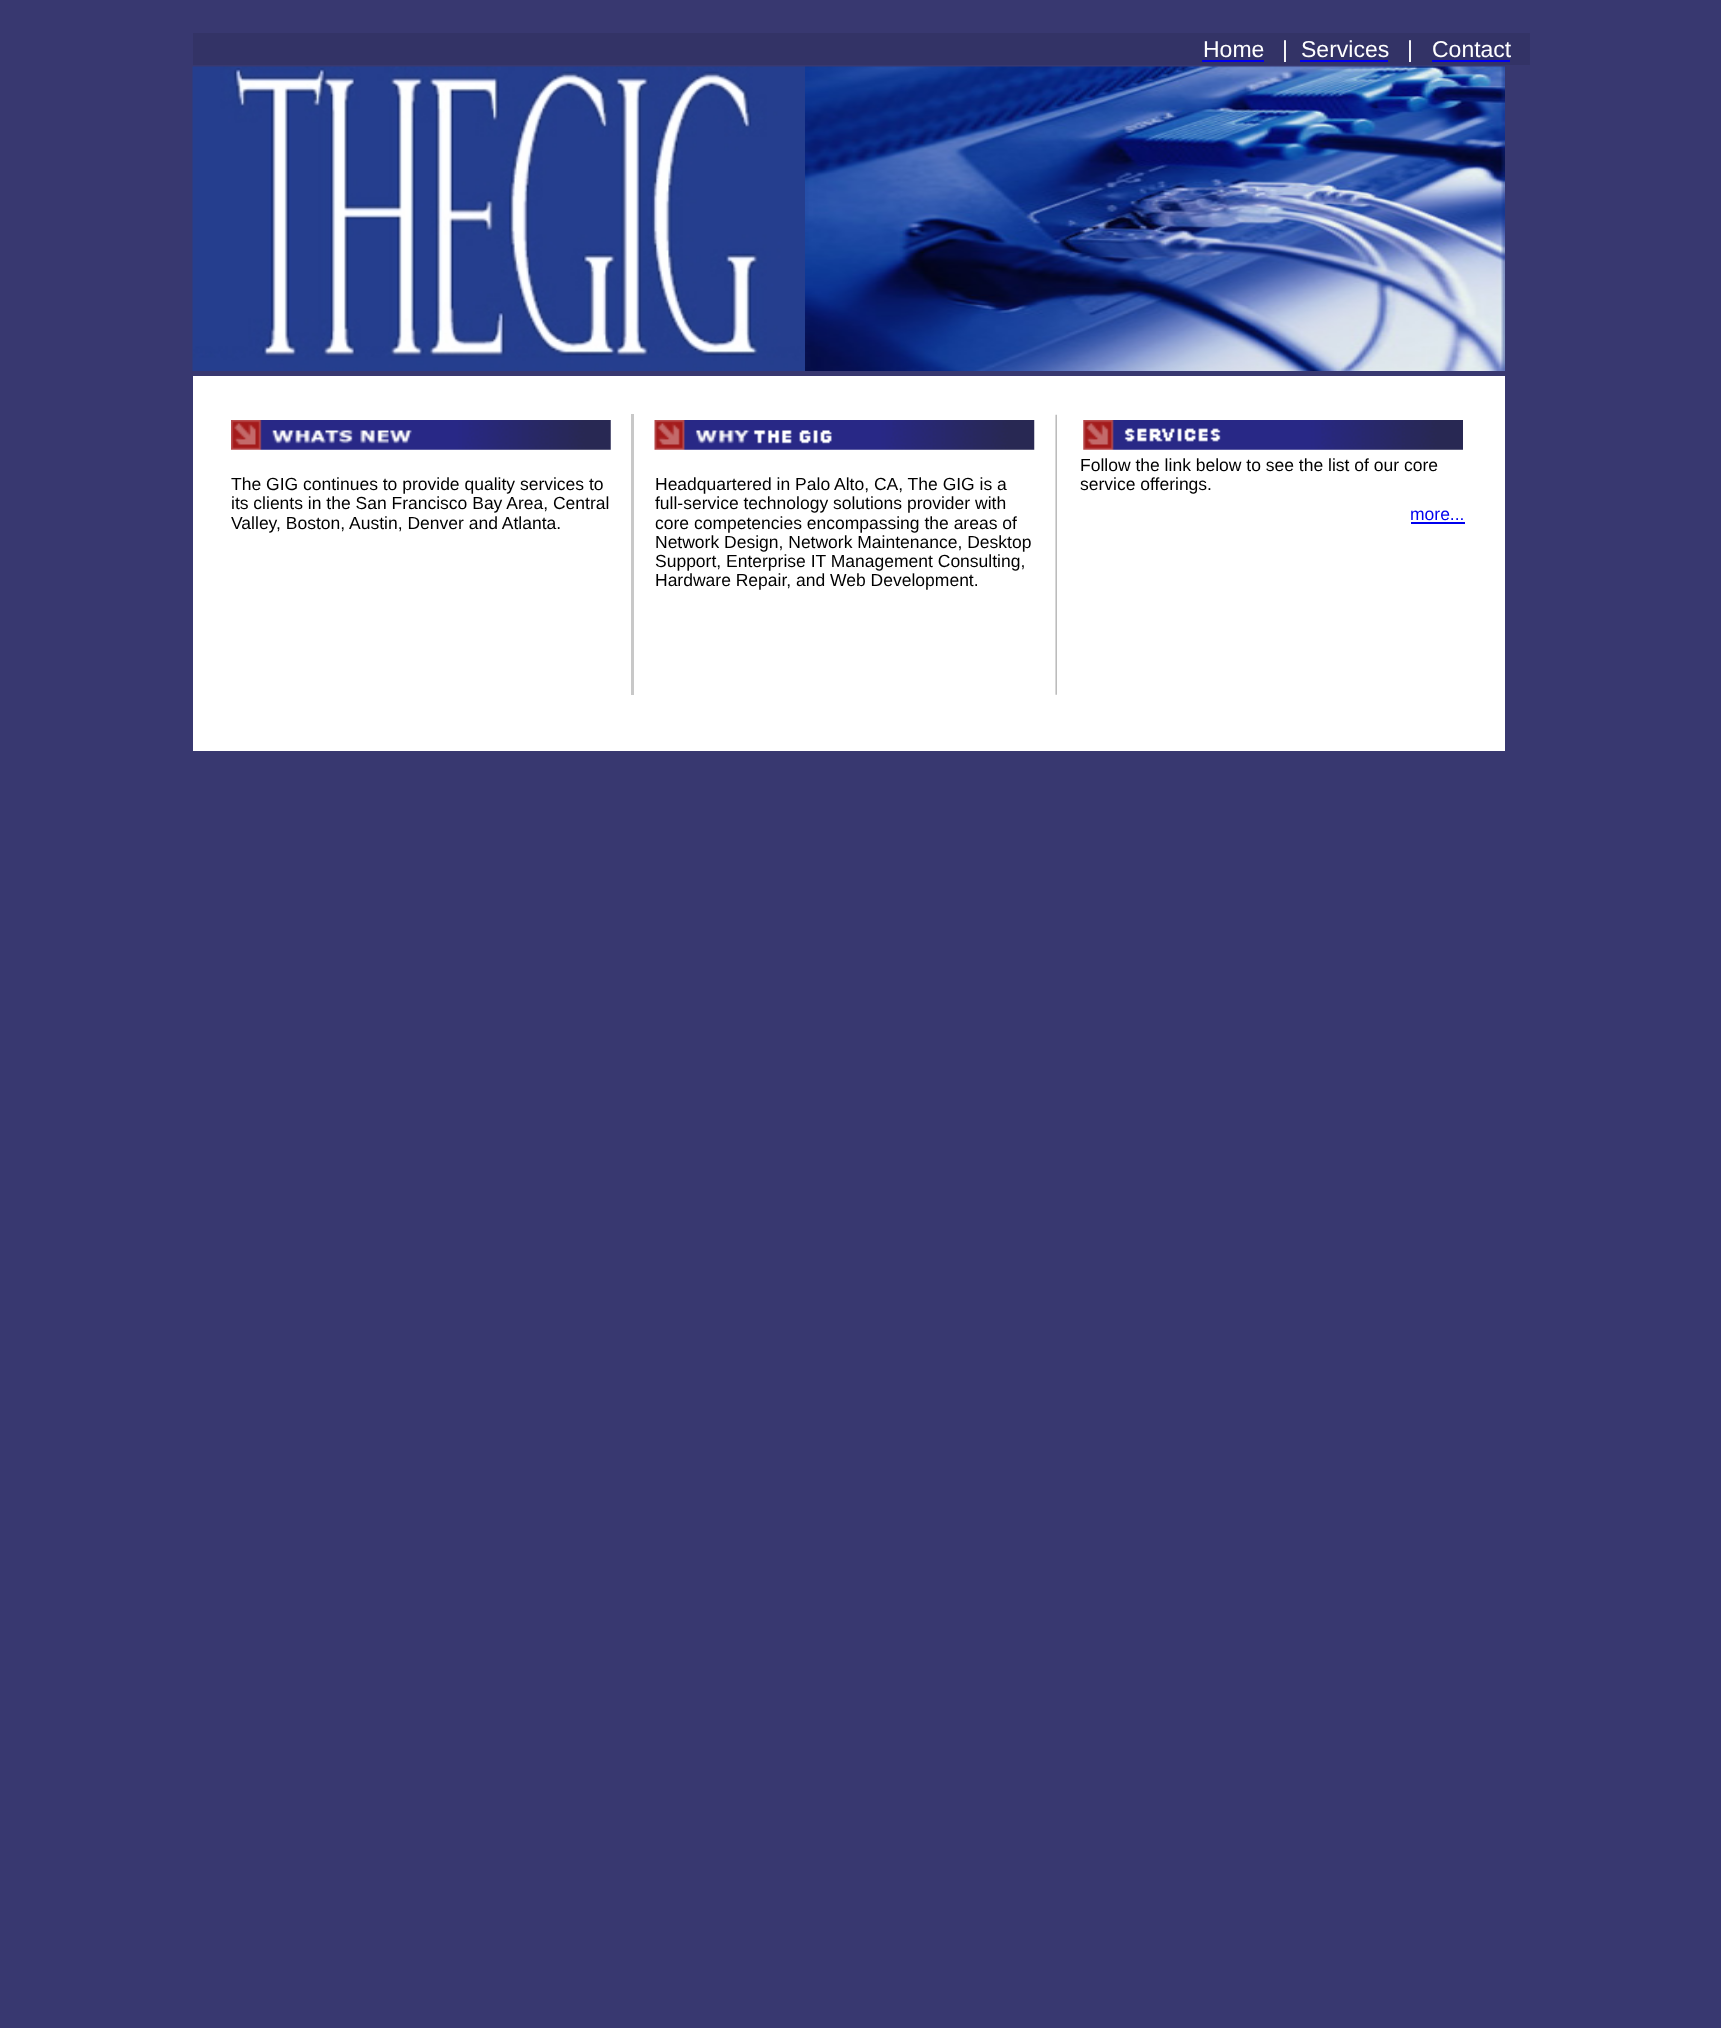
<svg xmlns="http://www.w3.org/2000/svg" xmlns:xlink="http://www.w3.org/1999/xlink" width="1721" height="2028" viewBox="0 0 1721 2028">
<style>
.cls-1{font:23px Liberation Sans;fill:#ffffff}
.cls-2{font:17.5px Liberation Sans;fill:#000000}
.cls-3{font:17.5px Liberation Sans;fill:#0000ee}
</style>
<rect width="100%" height="100%" fill="#383870"/>
<rect fill="#333366" x="193" y="33" width="1337" height="32"/>
<rect fill="#0000ee" x="1202" y="60" width="62" height="2"/>
<rect fill="#0000ee" x="1300" y="60" width="88" height="2"/>
<rect fill="#0000ee" x="1432" y="60" width="78" height="2"/>
<image xlink:href="image0.png" x="192" y="66" width="613" height="305"/>
<image xlink:href="image1.png" x="805" y="66" width="700" height="305"/>
<rect fill="#ffffff" x="193" y="376" width="1312" height="375"/>
<image xlink:href="image2.png" x="231" y="420" width="380" height="30"/>
<rect fill="#c8c8c8" x="631" y="414" width="3" height="281"/>
<image xlink:href="image3.png" x="654" y="420" width="381" height="30"/>
<image xlink:href="image4.png" x="1055" y="414" width="2" height="281"/>
<image xlink:href="image5.png" x="1083" y="420" width="380" height="30"/>
<rect fill="#0000ee" x="1411" y="522" width="54" height="2"/>
<text class="cls-1" x="1203" y="57">Home</text>
<text class="cls-1" x="1282" y="57">|</text>
<text class="cls-1" x="1301" y="57">Services</text>
<text class="cls-1" x="1407" y="57">|</text>
<text class="cls-1" x="1432" y="57">Contact</text>
<text class="cls-2"><tspan x="231" y="490">The GIG continues to provide quality services to</tspan><tspan x="231" y="509">its clients in the San Francisco Bay Area, Central</tspan><tspan x="231" y="529">Valley, Boston, Austin, Denver and Atlanta.</tspan></text>
<text class="cls-2"><tspan x="655" y="490">Headquartered in Palo Alto, CA, The GIG is a</tspan><tspan x="655" y="509">full-service technology solutions provider with</tspan><tspan x="655" y="529">core competencies encompassing the areas of</tspan><tspan x="655" y="548">Network Design, Network Maintenance, Desktop</tspan><tspan x="655" y="567">Support, Enterprise IT Management Consulting,</tspan><tspan x="655" y="586">Hardware Repair, and Web Development.</tspan></text>
<text class="cls-2"><tspan x="1080" y="471">Follow the link below to see the list of our core</tspan><tspan x="1080" y="490">service offerings.</tspan></text>
<text class="cls-3" x="1410" y="520">more...</text>
</svg>
